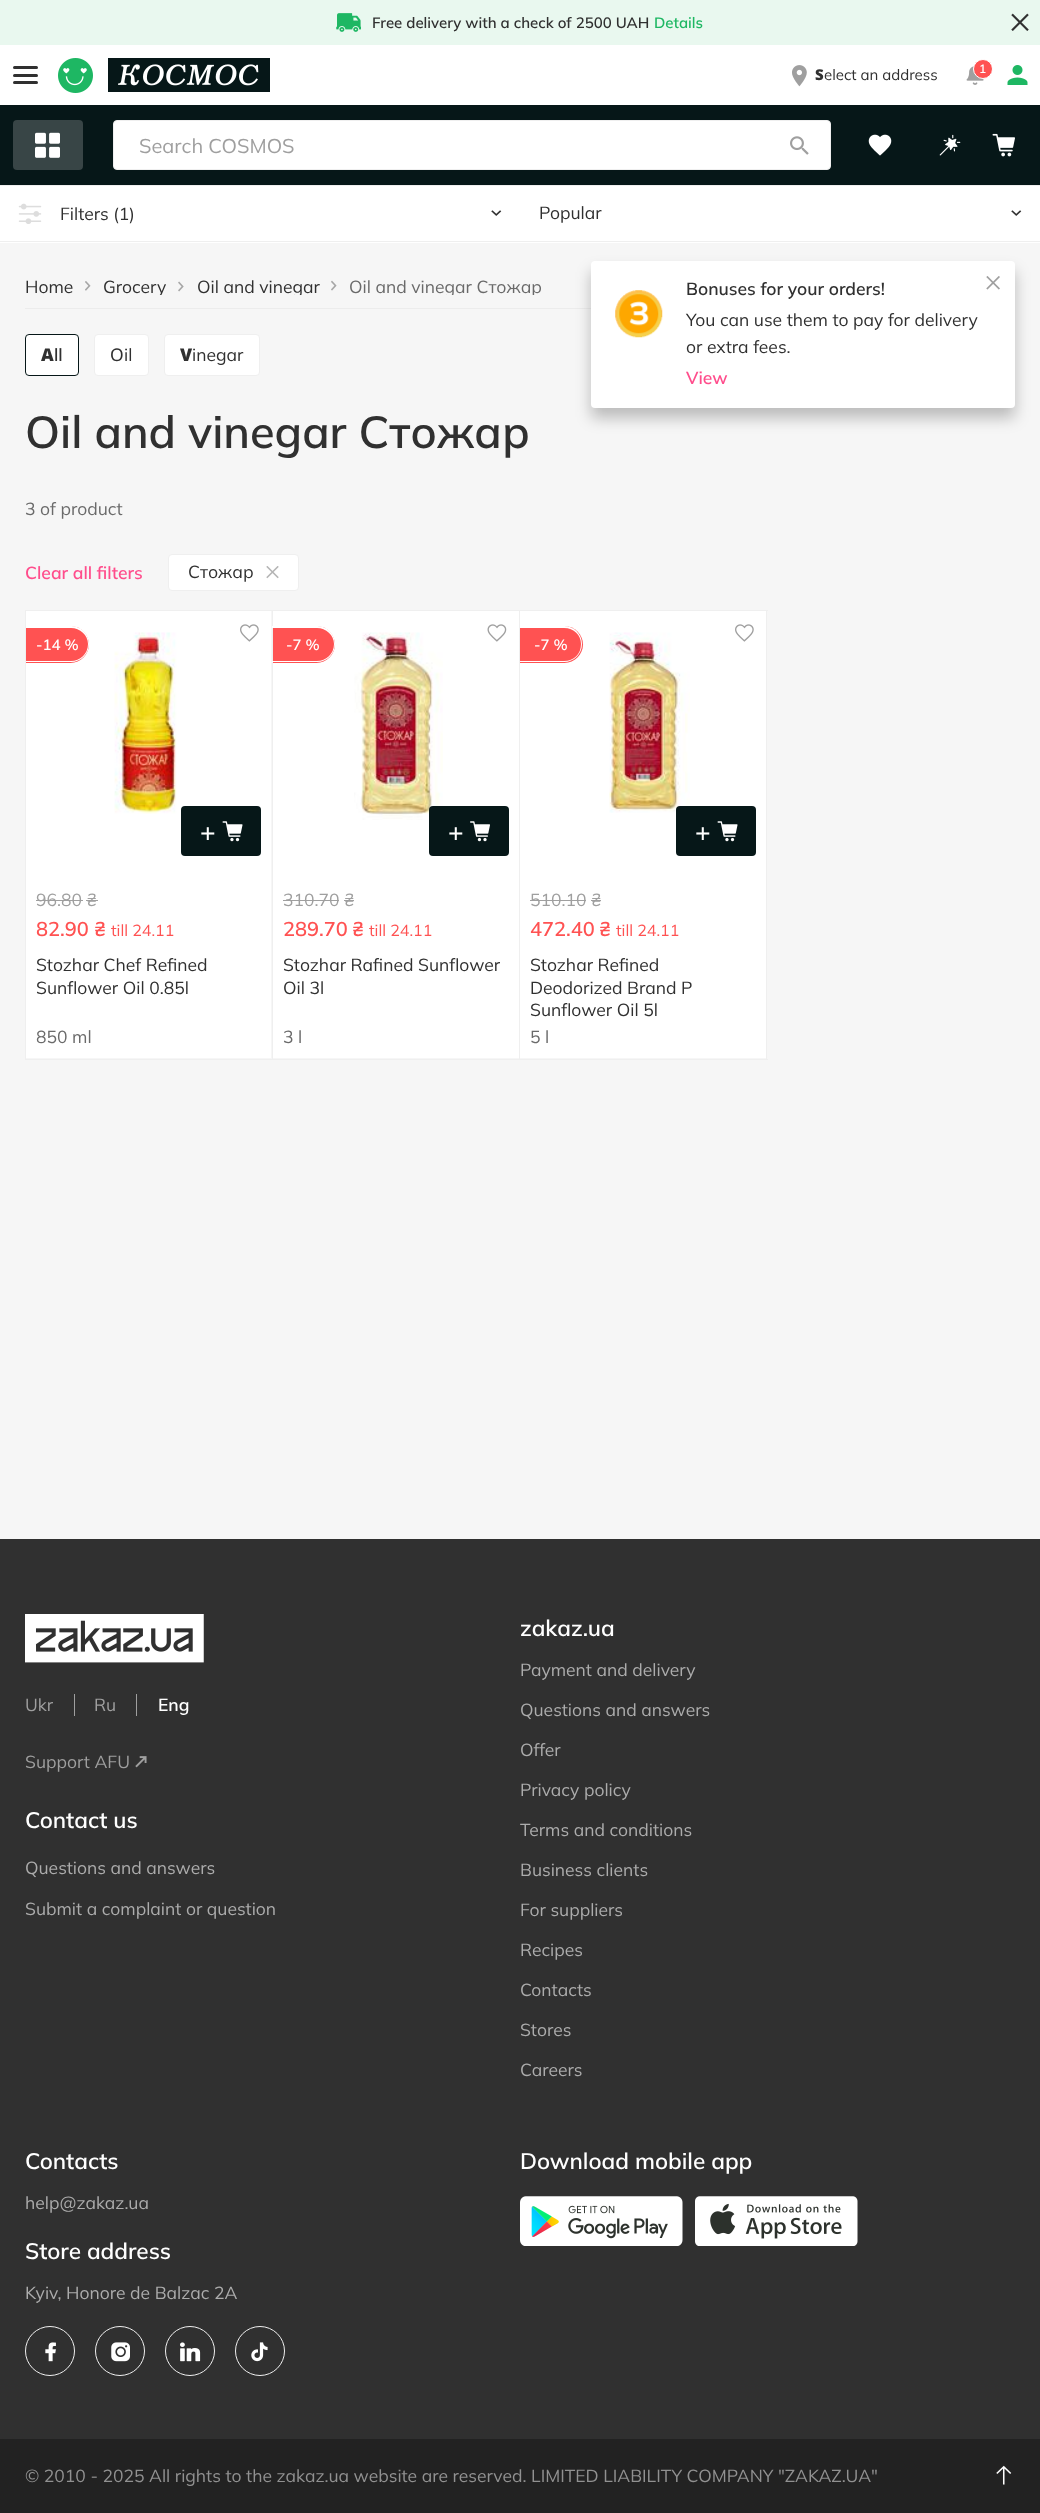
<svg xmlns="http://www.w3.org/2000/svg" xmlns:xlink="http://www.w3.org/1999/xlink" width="1040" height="2513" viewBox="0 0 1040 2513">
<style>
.cls-1{font:600 15px Mulish;fill:#303030}
.cls-2{font:600 15px Mulish;fill:#1eb763}
.cls-3{font:900 15px Noto Sans;fill:#303030}
.cls-4{font:15px Mulish;fill:#303030}
.cls-5{font:600 12px Mulish;fill:#ffffff}
.cls-6{font:20px Mulish;fill:#9f9f9f}
.cls-7{font:17.5px Mulish;fill:#303030}
.cls-8{font:600 17.5px Mulish;fill:#303030}
.cls-9{font:600 17.5px Mulish;fill:#ff4d8c}
.cls-10{font:17.5px Mulish;fill:#6a6a6a}
.cls-11{font:900 17.5px Noto Sans;fill:#303030}
.cls-12{font:17.5px Noto Sans;fill:#303030}
.cls-13{font:600 45px Mulish;fill:#303030}
.cls-14{font:600 15px Mulish;fill:#ffffff}
.cls-15{font:600 26px Mulish;fill:#ffffff}
.cls-16{font:17.5px Mulish;fill:#9f9f9f}
.cls-17{font:600 20px Mulish;fill:#ff5252}
.cls-18{font:16px Mulish;fill:#ff5252}
.cls-19{font:600 17.5px Mulish;fill:#ffffff}
.cls-20{font:600 22.5px Mulish;fill:#ffffff}
.cls-21{font:17.5px Mulish;fill:#acacac}
.cls-22{font:17.5px Mulish;fill:#919191}
</style>
<defs>
<clipPath id="clip1"><rect x="104" y="274" width="92" height="21"/></clipPath>
<clipPath id="clip2"><rect x="196" y="274" width="154" height="21"/></clipPath>
<clipPath id="clip3"><rect x="350" y="274" width="193" height="21"/></clipPath>
</defs>
<rect width="100%" height="100%" fill="#f6f6f6"/>
<rect fill="#e9f8ef" x="0" y="0" width="1040" height="45"/>
<image xlink:href="image0.png" x="336" y="13" width="25" height="19"/>
<image xlink:href="image1.png" x="1011" y="13" width="18" height="18"/>
<rect fill="#ffffff" x="0" y="45" width="1040" height="60"/>
<rect fill="#303030" x="13" y="66" width="25" height="3" rx="1.5"/>
<rect fill="#303030" x="13" y="74" width="25" height="3" rx="1.5"/>
<rect fill="#303030" x="13" y="81" width="25" height="3" rx="1.5"/>
<image xlink:href="image2.png" x="58" y="58" width="35" height="35"/>
<image xlink:href="image3.png" x="108" y="58" width="162" height="34"/>
<image xlink:href="image4.png" x="792" y="65" width="15" height="22"/>
<image xlink:href="image5.png" x="966" y="66" width="18" height="19"/>
<circle fill="#ff5252" stroke="#ffffff" cx="983" cy="69" r="9.5"/>
<image xlink:href="image6.png" x="1007" y="65" width="21" height="20"/>
<rect fill="#061718" x="0" y="105" width="1040" height="80"/>
<rect fill="#384546" x="13" y="120" width="70" height="50" rx="4"/>
<image xlink:href="image7.png" x="35" y="132" width="25" height="26"/>
<rect fill="#ffffff" stroke="#efefef" x="113.5" y="120.5" width="717" height="49" rx="3.5"/>
<image xlink:href="image8.png" x="790" y="136" width="19" height="19"/>
<image xlink:href="image9.png" x="868" y="134" width="24" height="22"/>
<image xlink:href="image10.png" x="939" y="134" width="22" height="22"/>
<image xlink:href="image11.png" x="992" y="133" width="23" height="24"/>
<rect fill="#efefef" x="0" y="185" width="1040" height="1"/>
<rect fill="#ffffff" x="0" y="186" width="1040" height="57"/>
<rect fill="#efefef" x="0" y="241" width="1040" height="1"/>
<image xlink:href="image12.png" x="18" y="203" width="24" height="21"/>
<image xlink:href="image13.png" x="491" y="210" width="11" height="6"/>
<image xlink:href="image13.png" x="1011" y="210" width="11" height="6"/>
<rect fill="#ececec" x="25" y="308" width="566" height="1"/>
<rect fill="#000000" fill-opacity="0.24" filter="blur(7.5px)" x="591" y="271" width="424" height="147" rx="4"/>
<rect fill="#ffffff" x="591" y="261" width="424" height="147" rx="4"/>
<image xlink:href="image14.png" x="615" y="290" width="48" height="48"/>
<image xlink:href="image15.png" x="986" y="276" width="14" height="14"/>
<image xlink:href="image16.png" x="85" y="281" width="6" height="10"/>
<image xlink:href="image17.png" x="178" y="281" width="6" height="11"/>
<image xlink:href="image18.png" x="331" y="280" width="6" height="11"/>
<rect fill="#ffffff" stroke="#061718" x="25.5" y="334.5" width="53" height="41" rx="3.5"/>
<rect fill="#ffffff" stroke="#efefef" x="94.5" y="334.5" width="54" height="41" rx="3.5"/>
<rect fill="#ffffff" stroke="#efefef" x="164.5" y="334.5" width="95" height="41" rx="3.5"/>
<rect fill="#ffffff" stroke="#efefef" x="168.5" y="554.5" width="130" height="36" rx="3.5"/>
<image xlink:href="image19.png" x="266" y="566" width="13" height="13"/>
<rect fill="none" stroke="#efefef" x="25.5" y="610.5" width="247" height="449"/>
<rect fill="#ffffff" x="26" y="611" width="245" height="447"/>
<image xlink:href="image20.png" x="240" y="624" width="19" height="18"/>
<path fill="#ff5252" d="M26 626H70.5C80.5 626 89 634.5 89 644.5C89 654.5 80.5 663 70.5 663H26Z"/>
<path fill="#ffffff" fill-rule="evenodd" d="M26 626H71C81 626 89 634 89 644C89 654 81 662 71 662H26ZM26 628H71C80 628 88 635 88 644C88 654 80 661 71 661H26Z"/>
<image xlink:href="image21.png" x="114" y="632" width="63" height="182"/>
<rect fill="#061718" x="181" y="806" width="80" height="50" rx="4"/>
<image xlink:href="image22.png" x="222" y="821" width="21" height="21"/>
<rect fill="#9f9f9f" x="36" y="900" width="47" height="1"/>
<rect fill="#9f9f9f" x="86" y="900" width="12" height="1"/>
<rect fill="#efefef" x="273" y="610" width="495" height="1"/>
<rect fill="#efefef" x="519" y="610" width="1" height="450"/>
<rect fill="#efefef" x="273" y="1059" width="247" height="1"/>
<rect fill="#ffffff" x="273" y="611" width="246" height="447"/>
<image xlink:href="image23.png" x="487" y="624" width="20" height="18"/>
<path fill="#ff5252" d="M273 626H316.5C326.5 626 335 634.5 335 644.5C335 654.5 326.5 663 316.5 663H273Z"/>
<path fill="#ffffff" fill-rule="evenodd" d="M272 626H317C327 626 335 634 335 644C335 654 327 662 317 662H272ZM272 628H317C326 628 334 635 334 644C334 654 326 661 317 661H272Z"/>
<image xlink:href="image24.png" x="354" y="632" width="89" height="188"/>
<rect fill="#061718" x="429" y="806" width="80" height="50" rx="4"/>
<image xlink:href="image25.png" x="470" y="821" width="20" height="21"/>
<rect fill="#9f9f9f" x="283" y="900" width="56" height="1"/>
<rect fill="#9f9f9f" x="344" y="900" width="10" height="1"/>
<rect fill="#efefef" x="766" y="610" width="1" height="450"/>
<rect fill="#efefef" x="520" y="1059" width="248" height="1"/>
<rect fill="#ffffff" x="520" y="611" width="246" height="447"/>
<image xlink:href="image20.png" x="735" y="624" width="19" height="18"/>
<path fill="#ff5252" d="M520 626H564.5C574.5 626 583 634.5 583 644.5C583 654.5 574.5 663 564.5 663H520Z"/>
<path fill="#ffffff" fill-rule="evenodd" d="M520 626H564C574 626 582 634 582 644C582 654 574 662 564 662H520ZM520 628H564C574 628 581 635 581 644C581 654 574 661 564 661H520Z"/>
<image xlink:href="image26.png" x="609" y="632" width="81" height="181"/>
<rect fill="#061718" x="676" y="806" width="80" height="50" rx="4"/>
<image xlink:href="image22.png" x="717" y="821" width="21" height="21"/>
<rect fill="#9f9f9f" x="530" y="900" width="56" height="1"/>
<rect fill="#9f9f9f" x="591" y="900" width="10" height="1"/>
<rect fill="#303030" x="0" y="1539" width="1040" height="900"/>
<image xlink:href="image27.png" x="25" y="1614" width="179" height="49"/>
<rect fill="#9f9f9f" x="74" y="1694" width="1" height="22"/>
<rect fill="#9f9f9f" x="136" y="1694" width="1" height="22"/>
<image xlink:href="image28.png" x="135" y="1756" width="12" height="12"/>
<circle fill="none" stroke="#efefef" cx="50" cy="2351" r="24.5"/>
<image xlink:href="image29.png" x="45" y="2342" width="11" height="20"/>
<circle fill="none" stroke="#efefef" cx="120" cy="2351" r="24.5"/>
<image xlink:href="image30.png" x="111" y="2342" width="19" height="20"/>
<circle fill="none" stroke="#efefef" cx="190" cy="2351" r="24.5"/>
<image xlink:href="image31.png" x="180" y="2342" width="21" height="20"/>
<circle fill="none" stroke="#efefef" cx="260" cy="2351" r="24.5"/>
<image xlink:href="image32.png" x="251" y="2342" width="17" height="20"/>
<image xlink:href="image33.png" x="520" y="2196" width="163" height="50"/>
<image xlink:href="image34.png" x="695" y="2196" width="163" height="50"/>
<rect fill="#222222" x="0" y="2439" width="1040" height="74"/>
<image xlink:href="image35.png" x="996" y="2465" width="16" height="20"/>
<text class="cls-1" x="372" y="28">Free delivery with a check of 2500 UAH</text>
<text class="cls-2" x="654" y="28">Details</text>
<text class="cls-3" x="815" y="80">S</text>
<text class="cls-4" x="824" y="80">elect an address</text>
<text class="cls-5" x="979" y="73">1</text>
<text class="cls-6" x="139" y="153">Search COSMOS</text>
<text class="cls-7" x="60" y="220">Filters (1)</text>
<text class="cls-7" x="539" y="219">Popular</text>
<text class="cls-8" x="686" y="295">Bonuses for your orders!</text>
<text class="cls-7"><tspan x="686" y="326">You can use them to pay for delivery</tspan><tspan x="686" y="353">or extra fees.</tspan></text>
<text class="cls-9" x="686" y="384">View</text>
<text class="cls-7" x="25" y="293">Home</text>
<g clip-path="url(#clip1)">
<text class="cls-7" x="103" y="293">Grocery</text>
</g>
<g clip-path="url(#clip2)">
<text class="cls-7" x="197" y="293">Oil and vinegar</text>
</g>
<g clip-path="url(#clip3)">
<text class="cls-10" x="349" y="293">Oil and vinegar Стожар</text>
</g>
<text class="cls-11" x="41" y="361">A</text>
<text class="cls-8" x="54" y="361">ll</text>
<text class="cls-12" x="110" y="361">O</text>
<text class="cls-7" x="124" y="361">il</text>
<text class="cls-11" x="180" y="361">V</text>
<text class="cls-7" x="192" y="361">inegar</text>
<text class="cls-13" x="25" y="448">Oil and vinegar Стожар</text>
<text class="cls-10" x="25" y="515">3 of product</text>
<text class="cls-9" x="25" y="579">Clear all filters</text>
<text class="cls-7" x="188" y="578">Стожар</text>
<text class="cls-14" x="36" y="650">-14 %</text>
<text class="cls-15" x="200" y="841">+</text>
<text class="cls-16" x="36" y="906">96.80 ₴</text>
<text class="cls-17" x="36" y="936">82.90</text>
<text class="cls-17" x="94" y="936">₴</text>
<text class="cls-18" x="111" y="936">till 24.11</text>
<text class="cls-7"><tspan x="36" y="971">Stozhar Chef Refined</tspan><tspan x="36" y="994">Sunflower Oil 0.85l</tspan></text>
<text class="cls-10" x="36" y="1043">850 ml</text>
<text class="cls-14" x="286" y="650">-7 %</text>
<text class="cls-15" x="448" y="841">+</text>
<text class="cls-16" x="283" y="906">310.70 ₴</text>
<text class="cls-17" x="283" y="936">289.70</text>
<text class="cls-17" x="352" y="936">₴</text>
<text class="cls-18" x="369" y="936">till 24.11</text>
<text class="cls-7"><tspan x="283" y="971">Stozhar Rafined Sunflower</tspan><tspan x="283" y="994">Oil 3l</tspan></text>
<text class="cls-10" x="283" y="1043">3 l</text>
<text class="cls-14" x="534" y="650">-7 %</text>
<text class="cls-15" x="695" y="841">+</text>
<text class="cls-16" x="530" y="906">510.10 ₴</text>
<text class="cls-17" x="530" y="936">472.40</text>
<text class="cls-17" x="599" y="936">₴</text>
<text class="cls-18" x="616" y="936">till 24.11</text>
<text class="cls-7"><tspan x="530" y="971">Stozhar Refined</tspan><tspan x="530" y="994">Deodorized Brand P</tspan><tspan x="530" y="1016">Sunflower Oil 5l</tspan></text>
<text class="cls-10" x="530" y="1043">5 l</text>
<text class="cls-16" x="25" y="1711">Ukr</text>
<text class="cls-16" x="94" y="1711">Ru</text>
<text class="cls-19" x="158" y="1711">Eng</text>
<text class="cls-16" x="25" y="1768">Support AFU</text>
<text class="cls-20" x="25" y="1828">Contact us</text>
<text class="cls-21" x="25" y="1874">Questions and answers</text>
<text class="cls-21" x="25" y="1915">Submit a complaint or question</text>
<text class="cls-20" x="520" y="1636">zakaz.ua</text>
<text class="cls-21" x="520" y="1676">Payment and delivery</text>
<text class="cls-21" x="520" y="1716">Questions and answers</text>
<text class="cls-21" x="520" y="1756">Offer</text>
<text class="cls-21" x="520" y="1796">Privacy policy</text>
<text class="cls-21" x="520" y="1836">Terms and conditions</text>
<text class="cls-21" x="520" y="1876">Business clients</text>
<text class="cls-21" x="520" y="1916">For suppliers</text>
<text class="cls-21" x="520" y="1956">Recipes</text>
<text class="cls-21" x="520" y="1996">Contacts</text>
<text class="cls-21" x="520" y="2036">Stores</text>
<text class="cls-21" x="520" y="2076">Careers</text>
<text class="cls-20" x="25" y="2169">Contacts</text>
<text class="cls-21" x="25" y="2209">help@zakaz.ua</text>
<text class="cls-20" x="25" y="2259">Store address</text>
<text class="cls-21" x="25" y="2299">Kyiv, Honore de Balzac 2A</text>
<text class="cls-20" x="520" y="2169">Download mobile app</text>
<text class="cls-22" x="25" y="2482">© 2010 - 2025 All rights to the zakaz.ua website are reserved. LIMITED LIABILITY COMPANY "ZAKAZ.UA"</text>
</svg>
